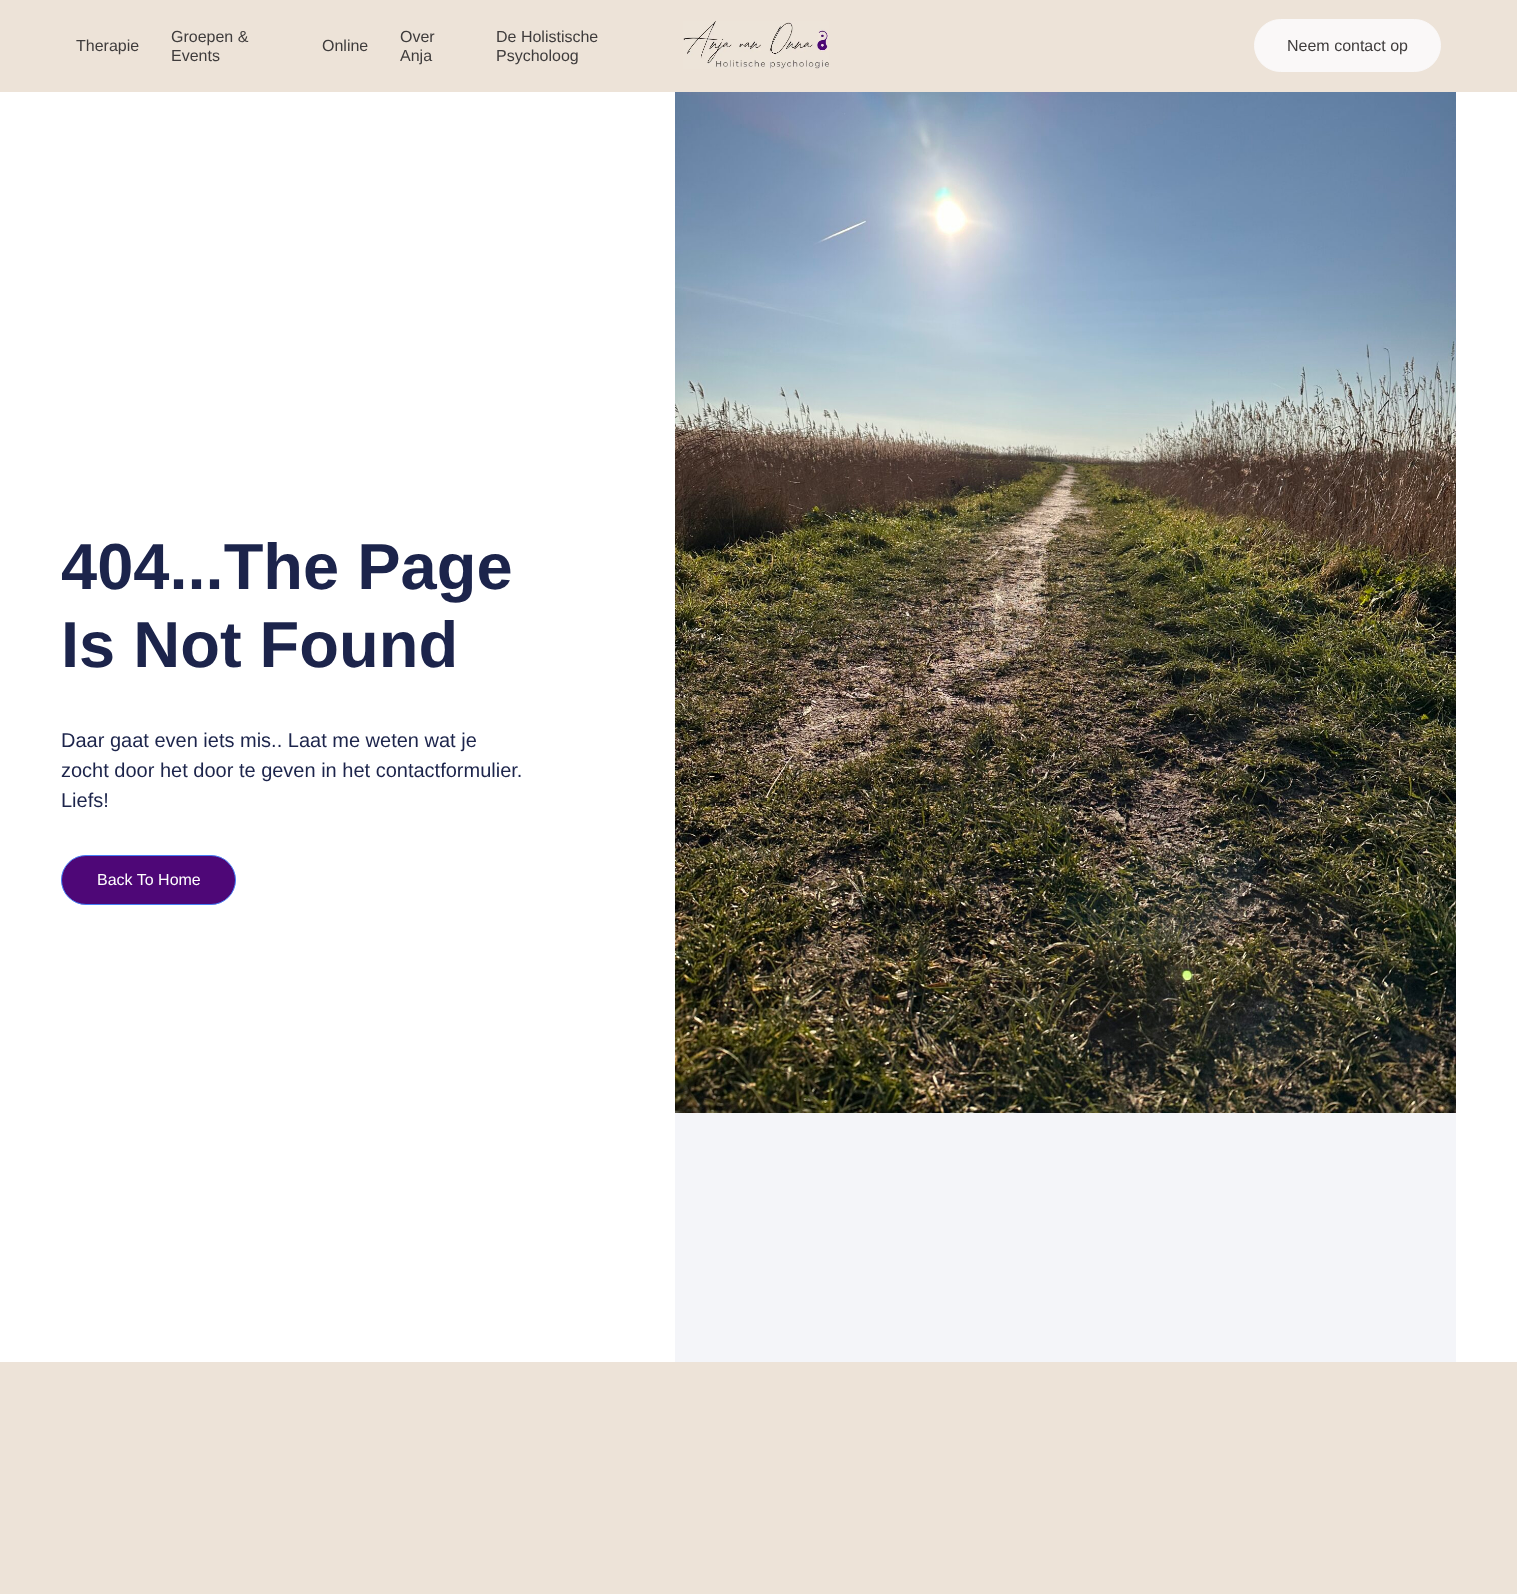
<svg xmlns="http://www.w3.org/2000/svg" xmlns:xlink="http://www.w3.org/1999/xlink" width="1517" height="1594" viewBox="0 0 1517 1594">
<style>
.cls-1{font:16px Liberation Sans;fill:#3f3c3c}
.cls-2{font:bold 65px Liberation Sans;fill:#1c244b}
.cls-3{font:20px Liberation Sans;fill:#1c244b}
.cls-4{font:16px Liberation Sans;fill:#ffffff}
</style>
<rect width="100%" height="100%" fill="#ede3d8"/>
<image xlink:href="image0.png" x="683" y="21" width="146" height="48"/>
<rect fill="#faf8f8" stroke="#faf8f8" x="1254.5" y="19.5" width="186" height="52" rx="26"/>
<rect fill="#ffffff" x="0" y="92" width="1517" height="1270"/>
<rect fill="#4e0777" stroke="#467ff7" x="61.5" y="855.5" width="174" height="49" rx="24.5"/>
<image xlink:href="image1.png" x="675" y="1113" width="781" height="249"/>
<image xlink:href="image2.png" x="675" y="92" width="781" height="1021"/>
<text class="cls-1" x="76" y="51">Therapie</text>
<text class="cls-1"><tspan x="171" y="42">Groepen &amp;</tspan><tspan x="171" y="61">Events</tspan></text>
<text class="cls-1" x="322" y="51">Online</text>
<text class="cls-1"><tspan x="400" y="42">Over</tspan><tspan x="400" y="61">Anja</tspan></text>
<text class="cls-1"><tspan x="496" y="42">De Holistische</tspan><tspan x="496" y="61">Psycholoog</tspan></text>
<text class="cls-1" x="1287" y="51">Neem contact op</text>
<text class="cls-2"><tspan x="61" y="589">404...The Page</tspan><tspan x="61" y="667">Is Not Found</tspan></text>
<text class="cls-3"><tspan x="61" y="747">Daar gaat even iets mis.. Laat me weten wat je</tspan><tspan x="61" y="777">zocht door het door te geven in het contactformulier.</tspan><tspan x="61" y="807">Liefs!</tspan></text>
<text class="cls-4" x="97" y="885">Back To Home</text>
</svg>
